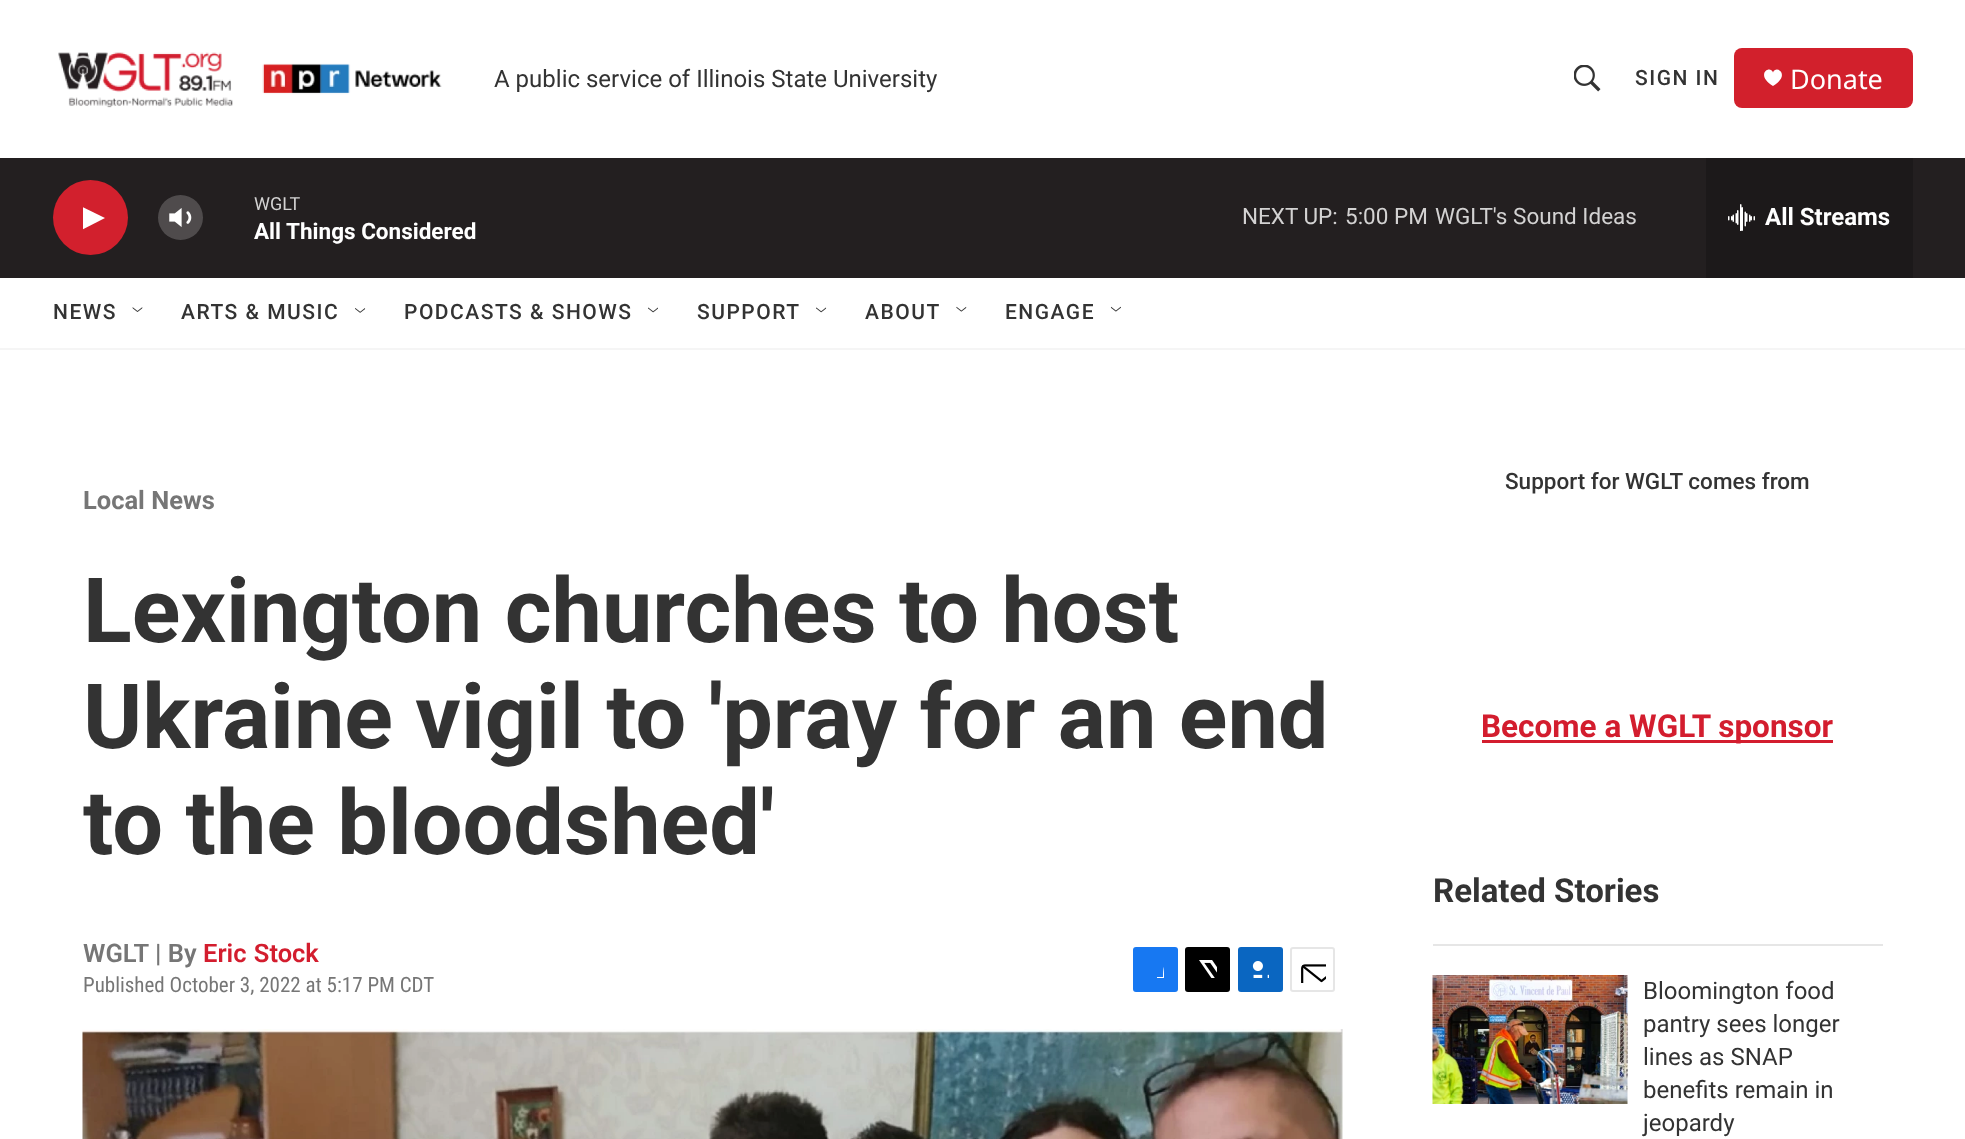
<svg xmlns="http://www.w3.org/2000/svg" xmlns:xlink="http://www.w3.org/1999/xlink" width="1965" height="1139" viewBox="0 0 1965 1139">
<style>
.cls-1{font:24px Roboto;fill:#333333}
.cls-2{font:500 21px Roboto;letter-spacing:1.5px;fill:#333333}
.cls-3{font:27px Noto Sans;fill:#ffffff}
.cls-4{font:18px Roboto;fill:#d3d2d2}
.cls-5{font:bold 22.5px 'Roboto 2';fill:#ffffff}
.cls-6{font:22.5px Roboto;fill:#d3d2d2}
.cls-7{font:bold 24px 'Roboto 2';fill:#ffffff}
.cls-8{font:bold 25.5px Roboto;fill:#767676}
.cls-9{font:bold 90px Roboto;fill:#333333}
.cls-10{font:600 25.5px Roboto;fill:#767676}
.cls-11{font:600 25.5px Roboto;fill:#d31d2e}
.cls-12{font:21px Roboto Condensed;fill:#767676}
.cls-13{font:500 22.5px Roboto;fill:#333333}
.cls-14{font:bold 31.5px 'Roboto 2';fill:#d31d2e}
.cls-15{font:bold 33px Roboto;fill:#333333}
</style>
<defs>
<clipPath id="clip1"><rect x="83" y="204" width="22" height="29"/></clipPath>
<clipPath id="clip2"><rect x="1146" y="960" width="18" height="18"/></clipPath>
</defs>
<rect width="100%" height="100%" fill="#ffffff"/>
<rect fill="#f5f5f5" x="0" y="348" width="1965" height="2"/>
<image xlink:href="image0.png" x="58" y="52" width="384" height="56"/>
<image xlink:href="image1.png" x="1574" y="65" width="27" height="27"/>
<rect fill="#d2202c" x="1734" y="48" width="179" height="60" rx="8"/>
<path fill="#ffffff" d="M1773 72.5C1770 64.5 1754.5 74.5 1773 86C1791.5 74.5 1776 64.5 1773 72.5Z"/>
<rect fill="#231f20" x="0" y="158" width="1965" height="120"/>
<circle fill="#d2202d" cx="90.5" cy="217.5" r="37.5"/>
<g clip-path="url(#clip1)">
<path fill="#ffffff" d="M82.5 207L105 218L82.5 229.5Z"/>
</g>
<image xlink:href="image2.png" x="169" y="208" width="23" height="19"/>
<circle fill="#ffffff" fill-opacity="0.2" cx="180.5" cy="217.5" r="22.5"/>
<rect fill="#1c191a" x="1706" y="158" width="207" height="120"/>
<image xlink:href="image3.png" x="1728" y="204" width="27" height="27"/>
<image xlink:href="image4.png" x="132" y="307" width="11" height="5"/>
<image xlink:href="image5.png" x="355" y="308" width="11" height="5"/>
<image xlink:href="image6.png" x="648" y="307" width="10" height="6"/>
<image xlink:href="image7.png" x="816" y="307" width="11" height="6"/>
<image xlink:href="image8.png" x="956" y="306" width="11" height="6"/>
<image xlink:href="image9.png" x="1110" y="306" width="11" height="6"/>
<rect fill="#1778f2" x="1133" y="947" width="45" height="45" rx="3"/>
<g clip-path="url(#clip2)">
<path fill="#ffffff" d="M1171 992H1163V984H1157V977H1163C1163 964.5 1165 959 1178 961V968C1169.5 968 1171 969.5 1171 977H1178L1177 984H1171Z"/>
</g>
<rect fill="#000000" x="1185" y="947" width="45" height="45" rx="3"/>
<image xlink:href="image10.png" x="1199" y="960" width="18" height="18"/>
<rect fill="#0a66c1" x="1238" y="947" width="45" height="45" rx="3"/>
<image xlink:href="image11.png" x="1252" y="961" width="17" height="17"/>
<rect fill="none" stroke="#e6e6e6" stroke-width="2" x="1291" y="948" width="43" height="43" rx="2"/>
<image xlink:href="image12.png" x="1301" y="964" width="25" height="19"/>
<image xlink:href="image13.png" x="82" y="1029" width="1261" height="110"/>
<rect fill="#d31d2e" x="1482" y="740" width="351" height="3"/>
<rect fill="#e6e6e6" x="1433" y="944" width="450" height="2"/>
<image xlink:href="image14.png" x="1432" y="975" width="196" height="129"/>
<text class="cls-1" x="494" y="87">A public service of Illinois State University</text>
<text class="cls-2" x="1635" y="85">SIGN IN</text>
<text class="cls-3" x="1790" y="89">Donate</text>
<text class="cls-4" x="254" y="210">WGLT</text>
<text class="cls-5" x="254" y="239">All Things Considered</text>
<text class="cls-6" x="1242" y="224">NEXT UP:</text>
<text class="cls-6" x="1345" y="224">5:00 PM</text>
<text class="cls-6" x="1435" y="224">WGLT's Sound Ideas</text>
<text class="cls-7" x="1765" y="225">All Streams</text>
<text class="cls-2" x="53" y="319">NEWS</text>
<text class="cls-2" x="181" y="319">ARTS &amp; MUSIC</text>
<text class="cls-2" x="404" y="319">PODCASTS &amp; SHOWS</text>
<text class="cls-2" x="697" y="319">SUPPORT</text>
<text class="cls-2" x="865" y="319">ABOUT</text>
<text class="cls-2" x="1005" y="319">ENGAGE</text>
<text class="cls-8" x="83" y="509">Local News</text>
<text class="cls-9"><tspan x="83" y="642">Lexington churches to host</tspan><tspan x="83" y="748">Ukraine vigil to 'pray for an end</tspan><tspan x="83" y="854">to the bloodshed'</tspan></text>
<text class="cls-10" x="83" y="962">WGLT | By</text>
<text class="cls-11" x="203" y="962" word-spacing="1">Eric Stock</text>
<text class="cls-12" x="83" y="992">Published October 3, 2022 at 5:17 PM CDT</text>
<text class="cls-13" x="1505" y="489">Support for WGLT comes from</text>
<text class="cls-14" x="1481" y="737">Become a WGLT sponsor</text>
<text class="cls-15" x="1433" y="902">Related Stories</text>
<text class="cls-1"><tspan x="1643" y="999">Bloomington food</tspan><tspan x="1643" y="1032">pantry sees longer</tspan><tspan x="1643" y="1065">lines as SNAP</tspan><tspan x="1643" y="1098">benefits remain in</tspan><tspan x="1643" y="1131">jeopardy</tspan></text>
</svg>
